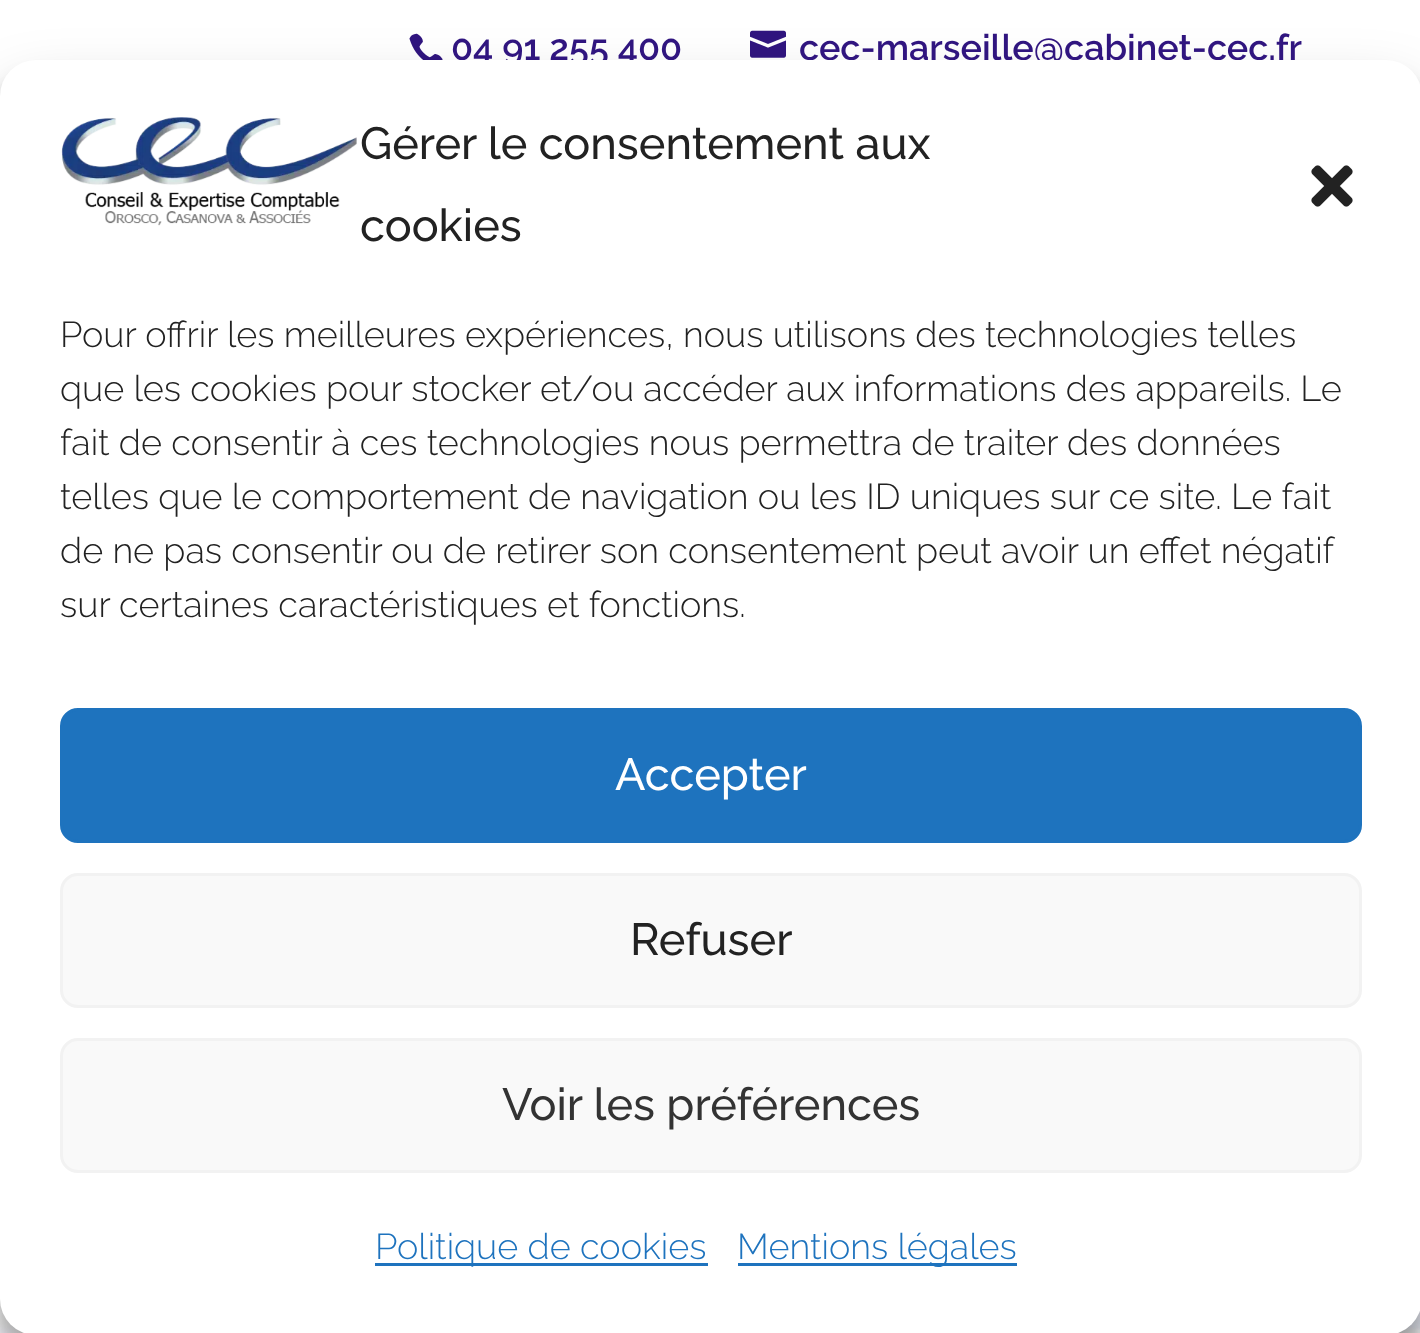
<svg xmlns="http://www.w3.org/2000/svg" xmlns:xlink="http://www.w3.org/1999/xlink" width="1420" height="1333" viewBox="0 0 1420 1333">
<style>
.cls-1{font:100 36px Raleway;fill:#30157f}
.cls-2{font:500 45px Raleway;fill:#222222}
.cls-3{font:300 36px Raleway;fill:#222222}
.cls-4{font:500 45px Raleway;fill:#ffffff}
.cls-5{font:500 45px Raleway;fill:#333333}
.cls-6{font:300 36px Raleway;fill:#1e73be}
</style>
<rect width="100%" height="100%" fill="#ffffff"/>
<image xlink:href="image0.png" x="409" y="33" width="34" height="27"/>
<image xlink:href="image1.png" x="750" y="30" width="36" height="28"/>
<rect fill="#000000" fill-opacity="0.1" filter="blur(10.5px)" x="0" y="96" width="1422" height="387"/>
<image xlink:href="image2.png" x="0" y="1299" width="1420" height="34"/>
<rect fill="#000000" fill-opacity="0.23" filter="blur(9px)" x="0" y="78" width="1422" height="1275" rx="36"/>
<rect fill="#000000" fill-opacity="0.19" filter="blur(30px)" x="0" y="90" width="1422" height="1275" rx="36"/>
<text class="cls-1" x="451" y="60">04 91 255 400</text>
<text class="cls-1" x="799" y="60">cec-marseille@cabinet-cec.fr</text>
<rect fill="#ffffff" x="0" y="60" width="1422" height="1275" rx="36"/>
<image xlink:href="image3.png" x="61" y="117" width="296" height="109"/>
<text class="cls-2"><tspan x="360" y="159">Gérer le consentement aux</tspan><tspan x="360" y="241">cookies</tspan></text>
<image xlink:href="image4.png" x="1311" y="165" width="42" height="42"/>
<text class="cls-3"><tspan x="60" y="347">Pour offrir les meilleures expériences, nous utilisons des technologies telles</tspan><tspan x="60" y="401">que les cookies pour stocker et/ou accéder aux informations des appareils. Le</tspan><tspan x="60" y="455">fait de consentir à ces technologies nous permettra de traiter des données</tspan><tspan x="60" y="509">telles que le comportement de navigation ou les ID uniques sur ce site. Le fait</tspan><tspan x="60" y="563">de ne pas consentir ou de retirer son consentement peut avoir un effet négatif</tspan><tspan x="60" y="617">sur certaines caractéristiques et fonctions.</tspan></text>
<rect fill="#1e73be" stroke="#1e73be" stroke-width="3" x="61.5" y="709.5" width="1299" height="132" rx="16.5"/>
<text class="cls-4" x="615" y="790">Accepter</text>
<rect fill="#f9f9f9" stroke="#f2f2f2" stroke-width="3" x="61.5" y="874.5" width="1299" height="132" rx="16.5"/>
<text class="cls-2" x="630" y="955">Refuser</text>
<rect fill="#f9f9f9" stroke="#f2f2f2" stroke-width="3" x="61.5" y="1039.5" width="1299" height="132" rx="16.5"/>
<text class="cls-5" x="502" y="1120">Voir les préférences</text>
<rect fill="#1e73be" x="375" y="1263" width="333" height="3"/>
<text class="cls-6" x="375" y="1259">Politique de cookies</text>
<rect fill="#1e73be" x="738" y="1263" width="279" height="3"/>
<text class="cls-6" x="737" y="1259">Mentions légales</text>
</svg>
